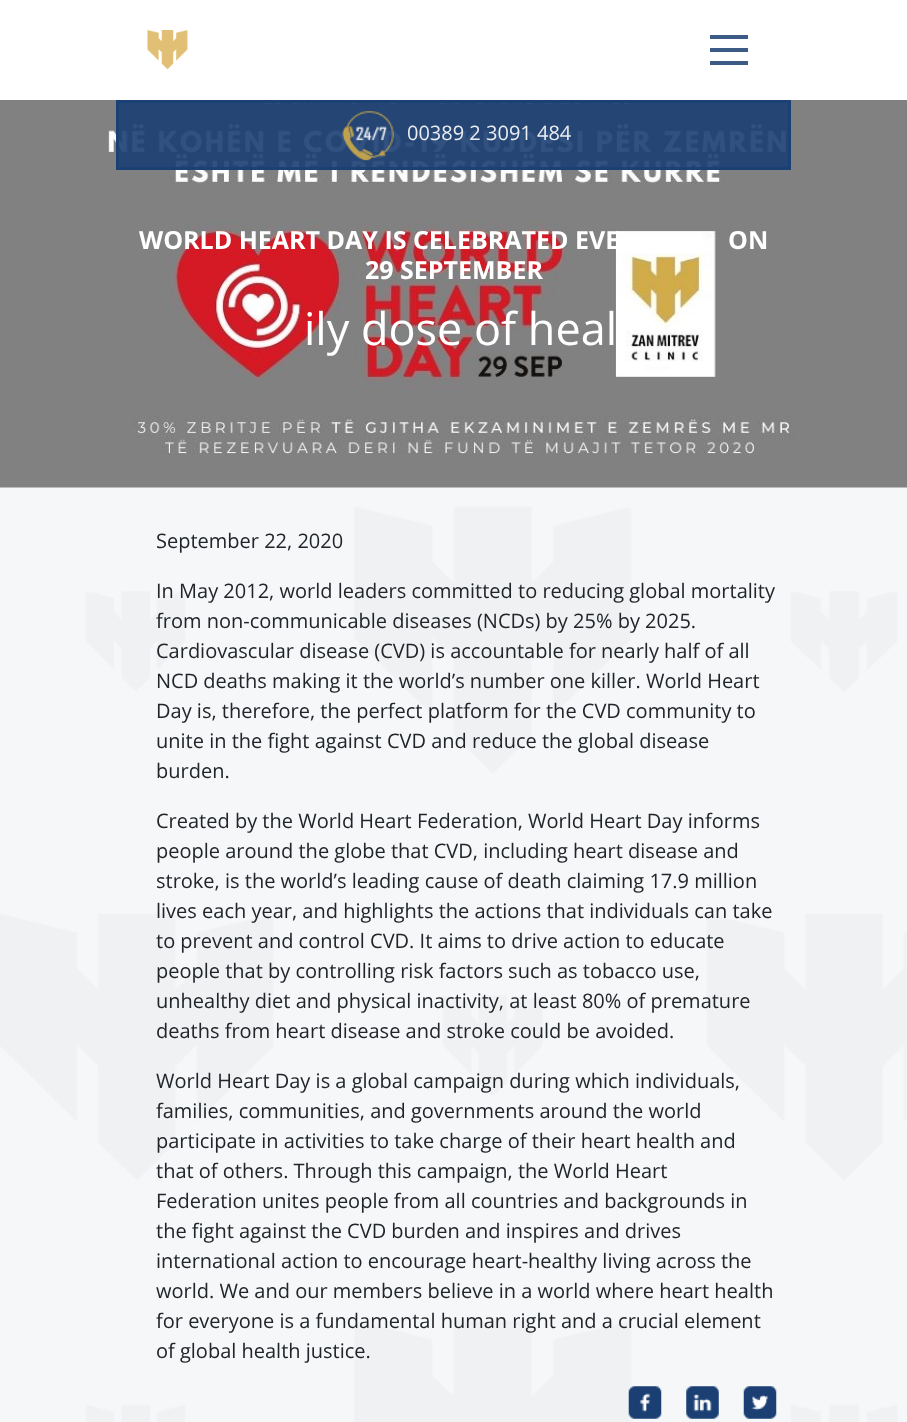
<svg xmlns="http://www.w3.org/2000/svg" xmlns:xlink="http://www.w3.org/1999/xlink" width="907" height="1422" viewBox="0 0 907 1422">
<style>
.cls-1{font:20px Open Sans;fill:#eaedf1}
.cls-2{font:bold 25px Open Sans;fill:#ffffff}
.cls-3{font:45px Open Sans;fill:#ffffff}
.cls-4{font:20px Open Sans;fill:#212529}
</style>
<rect width="100%" height="100%" fill="#ffffff"/>
<image xlink:href="image0.png" x="147" y="30" width="41" height="40"/>
<rect fill="#3c5b87" x="710" y="35" width="38" height="4"/>
<rect fill="#3c5b87" x="710" y="48" width="38" height="4"/>
<rect fill="#3c5b87" x="710" y="61" width="38" height="4"/>
<rect fill="#f6f7f9" x="0" y="487" width="907" height="935"/>
<image xlink:href="image3.png" x="0" y="100" width="907" height="388"/>
<rect fill="#1b3f73" fill-opacity="0.9" x="116" y="100" width="675" height="70"/>
<rect fill="none" stroke="#1b3f73" stroke-opacity="0.9" stroke-width="3" x="117.5" y="101.5" width="672" height="67"/>
<image xlink:href="image1.png" x="342" y="111" width="52" height="50"/>
<image xlink:href="image2.png" x="0" y="506" width="907" height="916"/>
<image xlink:href="image4.png" x="628" y="1386" width="34" height="33"/>
<image xlink:href="image5.png" x="686" y="1386" width="33" height="33"/>
<image xlink:href="image6.png" x="743" y="1386" width="34" height="33"/>
<text class="cls-1" x="407" y="140">00389 2 3091 484</text>
<text class="cls-2" x="139" y="249">WORLD HEART DAY IS CELEBRATED EVE</text>
<text class="cls-2" x="728" y="249">ON</text>
<text class="cls-2" x="365" y="279">29 SEPTEMBER</text>
<text class="cls-3" x="304" y="345">ily dose of heal</text>
<text class="cls-4" x="156" y="548">September 22, 2020</text>
<text class="cls-4"><tspan x="156" y="598">In May 2012, world leaders committed to reducing global mortality</tspan><tspan x="156" y="628">from non-communicable diseases (NCDs) by 25% by 2025.</tspan><tspan x="156" y="658">Cardiovascular disease (CVD) is accountable for nearly half of all</tspan><tspan x="156" y="688">NCD deaths making it the world’s number one killer. World Heart</tspan><tspan x="156" y="718">Day is, therefore, the perfect platform for the CVD community to</tspan><tspan x="156" y="748">unite in the fight against CVD and reduce the global disease</tspan><tspan x="156" y="778">burden.</tspan></text>
<text class="cls-4"><tspan x="156" y="828">Created by the World Heart Federation, World Heart Day informs</tspan><tspan x="156" y="858">people around the globe that CVD, including heart disease and</tspan><tspan x="156" y="888">stroke, is the world’s leading cause of death claiming 17.9 million</tspan><tspan x="156" y="918">lives each year, and highlights the actions that individuals can take</tspan><tspan x="156" y="948">to prevent and control CVD. It aims to drive action to educate</tspan><tspan x="156" y="978">people that by controlling risk factors such as tobacco use,</tspan><tspan x="156" y="1008">unhealthy diet and physical inactivity, at least 80% of premature</tspan><tspan x="156" y="1038">deaths from heart disease and stroke could be avoided.</tspan></text>
<text class="cls-4"><tspan x="156" y="1088">World Heart Day is a global campaign during which individuals,</tspan><tspan x="156" y="1118">families, communities, and governments around the world</tspan><tspan x="156" y="1148">participate in activities to take charge of their heart health and</tspan><tspan x="156" y="1178">that of others. Through this campaign, the World Heart</tspan><tspan x="156" y="1208">Federation unites people from all countries and backgrounds in</tspan><tspan x="156" y="1238">the fight against the CVD burden and inspires and drives</tspan><tspan x="156" y="1268">international action to encourage heart-healthy living across the</tspan><tspan x="156" y="1298">world. We and our members believe in a world where heart health</tspan><tspan x="156" y="1328">for everyone is a fundamental human right and a crucial element</tspan><tspan x="156" y="1358">of global health justice.</tspan></text>
</svg>
